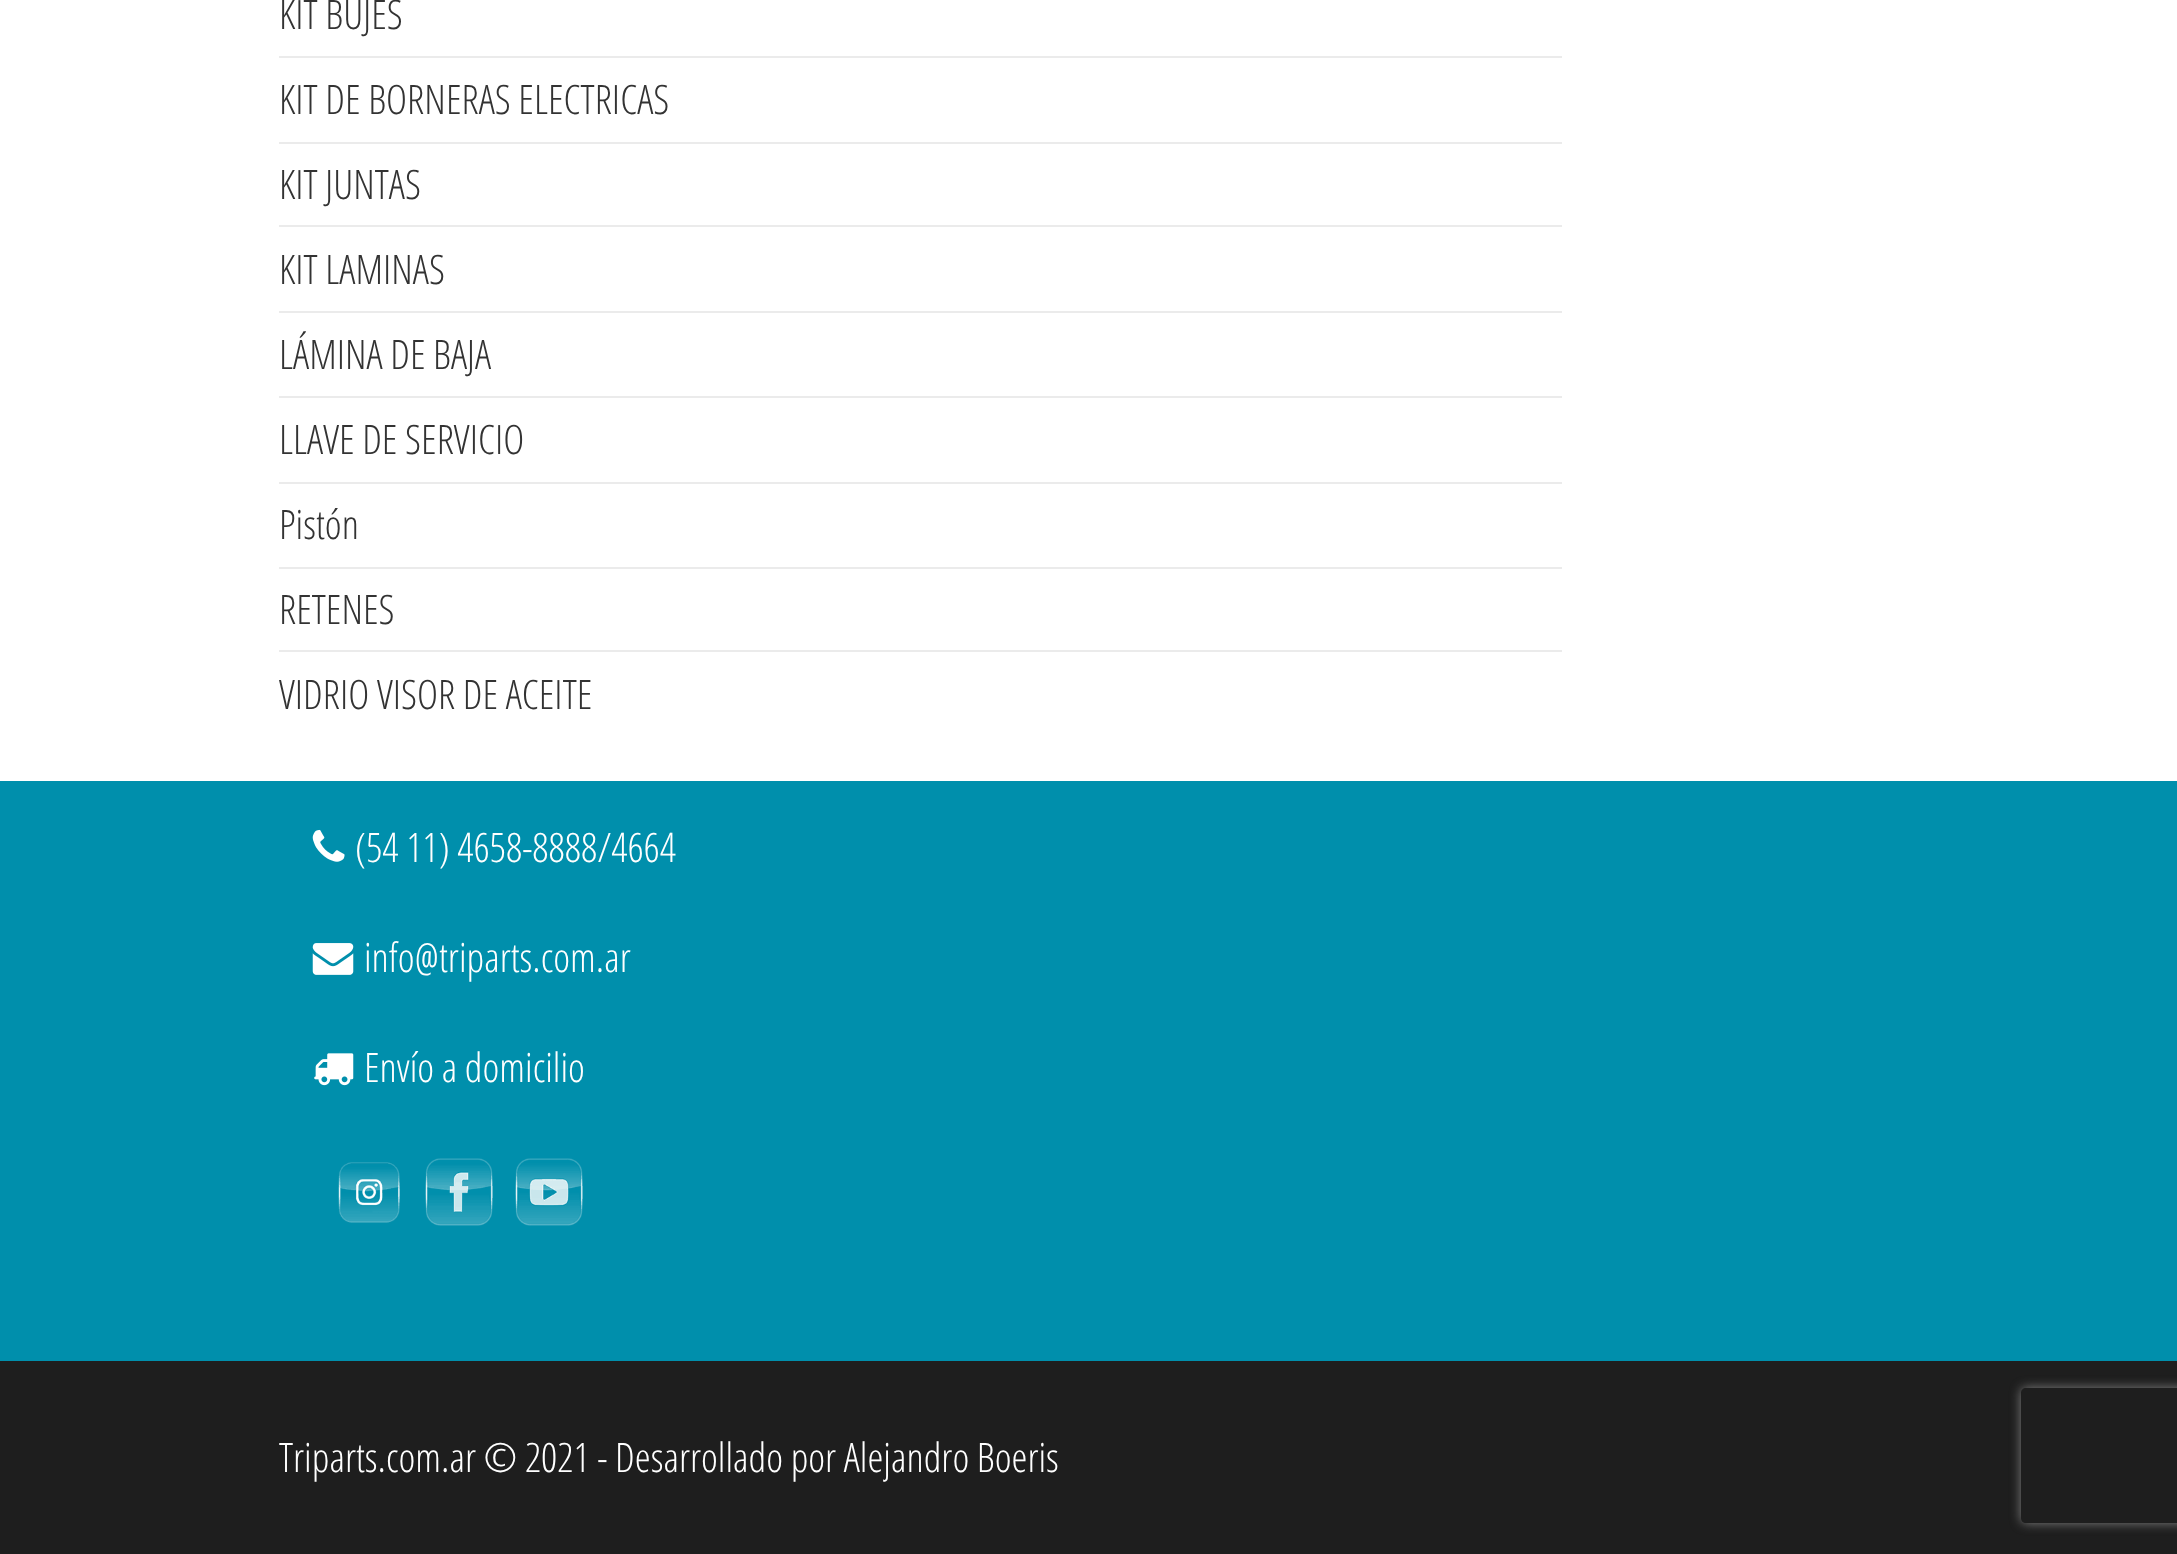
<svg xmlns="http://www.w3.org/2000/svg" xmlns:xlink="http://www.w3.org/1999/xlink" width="2177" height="1554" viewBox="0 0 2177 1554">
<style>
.cls-1{font:300 40.5px Open Sans Condensed;fill:#333333}
.cls-2{font:300 40.5px Open Sans Condensed;fill:#ffffff}
</style>
<defs>
<clipPath id="clip1"><path d="M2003 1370H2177V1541H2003ZM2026 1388H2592C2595 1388 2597 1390 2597 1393V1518C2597 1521 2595 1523 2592 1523H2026C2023 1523 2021 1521 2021 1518V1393C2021 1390 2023 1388 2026 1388Z" clip-rule="evenodd"/></clipPath>
</defs>
<rect width="100%" height="100%" fill="#ffffff"/>
<rect fill="#ebebeb" x="279" y="56" width="1283" height="2"/>
<rect fill="#ebebeb" x="279" y="142" width="1283" height="2"/>
<rect fill="#ebebeb" x="279" y="225" width="1283" height="2"/>
<rect fill="#ebebeb" x="279" y="311" width="1283" height="2"/>
<rect fill="#ebebeb" x="279" y="396" width="1283" height="2"/>
<rect fill="#ebebeb" x="279" y="482" width="1283" height="2"/>
<rect fill="#ebebeb" x="279" y="567" width="1283" height="2"/>
<rect fill="#ebebeb" x="279" y="650" width="1283" height="2"/>
<rect fill="#008fac" x="0" y="781" width="2177" height="580"/>
<image xlink:href="image0.png" x="312" y="829" width="33" height="33"/>
<image xlink:href="image1.png" x="312" y="943" width="42" height="32"/>
<image xlink:href="image2.png" x="314" y="1053" width="40" height="33"/>
<image xlink:href="image3.png" x="338" y="1162" width="62" height="61"/>
<image xlink:href="image4.png" x="425" y="1158" width="68" height="68"/>
<image xlink:href="image5.png" x="515" y="1158" width="68" height="68"/>
<rect fill="#1e1e1e" x="0" y="1361" width="2177" height="193"/>
<g clip-path="url(#clip1)">
<rect fill="#808080" filter="blur(5.5px)" x="2021" y="1388" width="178" height="135" rx="5"/>
</g>
<text class="cls-1" x="279" y="29">KIT BUJES</text>
<text class="cls-1" x="279" y="114">KIT DE BORNERAS ELECTRICAS</text>
<text class="cls-1" x="279" y="199">KIT JUNTAS</text>
<text class="cls-1" x="279" y="284">KIT LAMINAS</text>
<text class="cls-1" x="279" y="369">LÁMINA DE BAJA</text>
<text class="cls-1" x="279" y="454">LLAVE DE SERVICIO</text>
<text class="cls-1" x="279" y="539">Pistón</text>
<text class="cls-1" x="279" y="624">RETENES</text>
<text class="cls-1" x="279" y="709">VIDRIO VISOR DE ACEITE</text>
<text class="cls-2" x="355" y="862">(54 11) 4658-8888/4664</text>
<text class="cls-2" x="364" y="972">info@triparts.com.ar</text>
<text class="cls-2" x="364" y="1082">Envío a domicilio</text>
<text class="cls-2" x="279" y="1472">Triparts.com.ar © 2021 - Desarrollado por Alejandro Boeris</text>
</svg>
